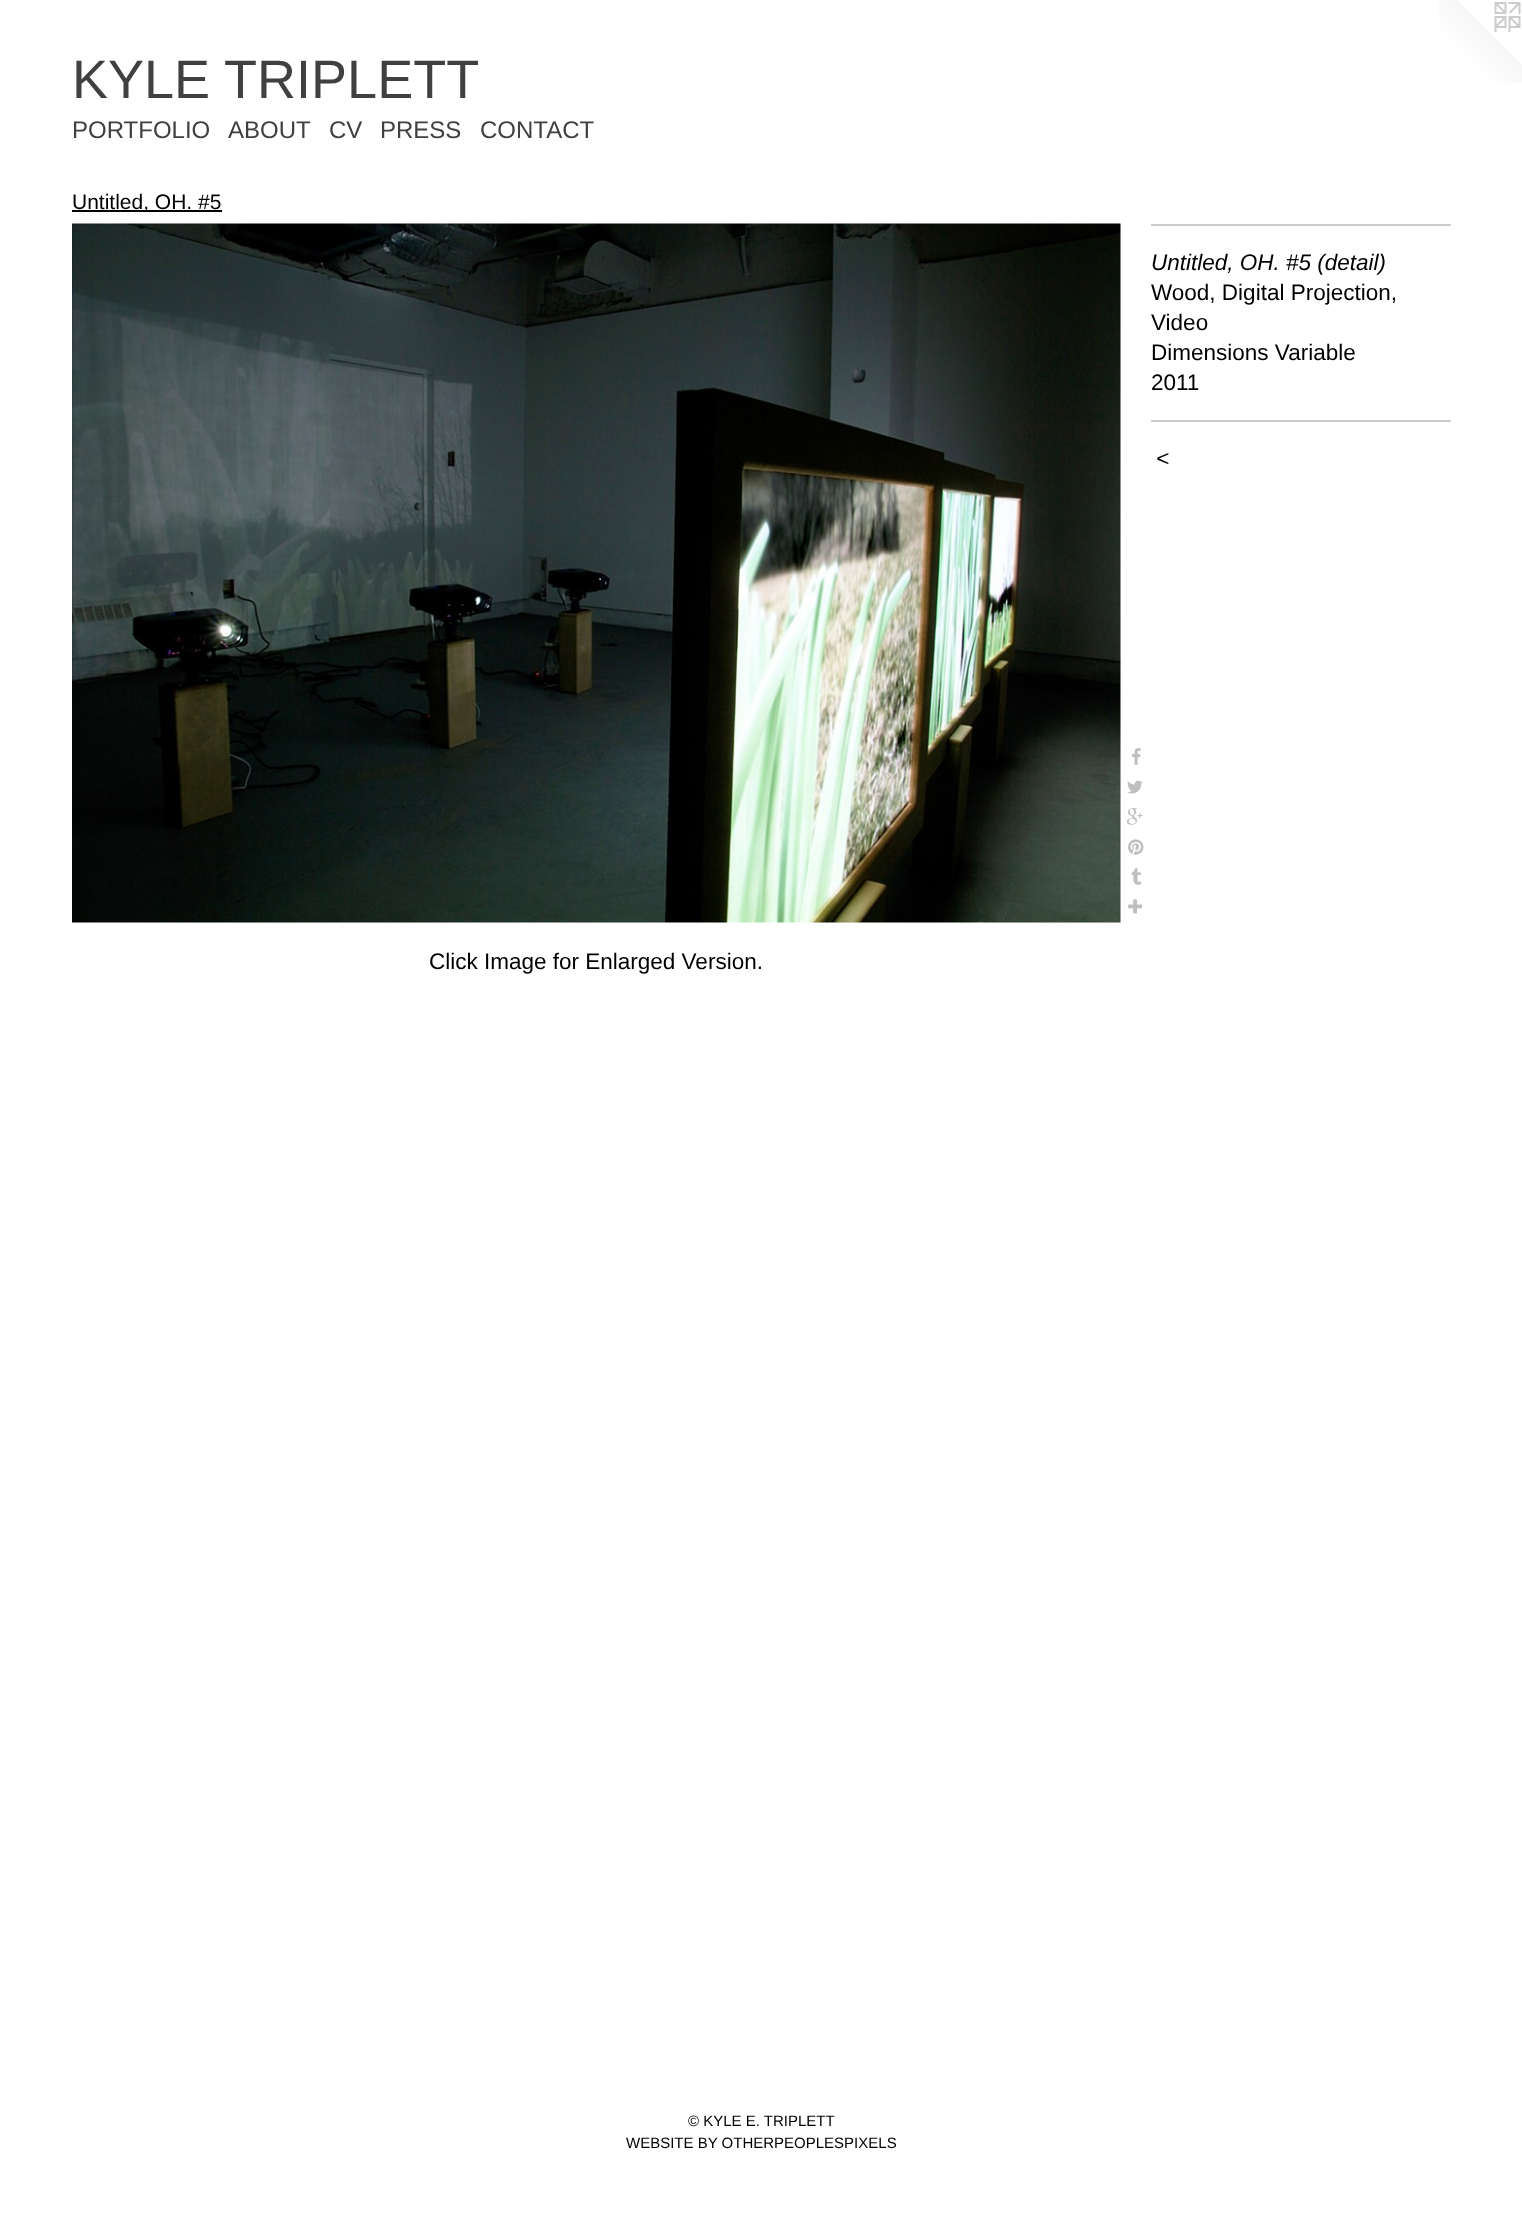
<svg xmlns="http://www.w3.org/2000/svg" xmlns:xlink="http://www.w3.org/1999/xlink" width="1522" height="2232" viewBox="0 0 1522 2232">
<style>
.cls-1{font:54px Arimo;fill:#404040}
.cls-2{font:24px Arimo;fill:#404040}
.cls-3{font:21px Arimo;fill:#000000}
.cls-4{font:italic 22.5px Liberation Sans;fill:#000000}
.cls-5{font:22.5px Liberation Sans;fill:#000000}
.cls-6{font:italic 22.5px Liberation Sans;letter-spacing:2px;fill:#000000}
.cls-7{font:15px Liberation Sans;fill:#000000}
</style>
<rect width="100%" height="100%" fill="#ffffff"/>
<image xlink:href="image0.png" x="1439" y="0" width="83" height="83"/>
<rect fill="#000000" x="72" y="210" width="150" height="2"/>
<image xlink:href="image1.png" x="72" y="223" width="1049" height="700"/>
<image xlink:href="image2.png" x="1132" y="748" width="9" height="17"/>
<image xlink:href="image3.png" x="1127" y="780" width="16" height="14"/>
<image xlink:href="image4.png" x="1126" y="808" width="17" height="17"/>
<image xlink:href="image5.png" x="1128" y="839" width="16" height="16"/>
<image xlink:href="image6.png" x="1131" y="868" width="11" height="17"/>
<image xlink:href="image7.png" x="1128" y="899" width="15" height="15"/>
<rect fill="#cccccc" x="1151" y="224" width="300" height="2"/>
<rect fill="#cccccc" x="1151" y="420" width="300" height="2"/>
<text class="cls-1" x="72" y="98">KYLE TRIPLETT</text>
<text class="cls-2" x="72" y="138">PORTFOLIO</text>
<text class="cls-2" x="228" y="138">ABOUT</text>
<text class="cls-2" x="329" y="138">CV</text>
<text class="cls-2" x="380" y="138">PRESS</text>
<text class="cls-2" x="480" y="138">CONTACT</text>
<text class="cls-3" x="72" y="209">Untitled, OH. #5</text>
<text class="cls-4" x="1151" y="270">Untitled, OH. #5 (detail)</text>
<text class="cls-5"><tspan x="1151" y="300">Wood, Digital Projection,</tspan><tspan x="1151" y="330">Video</tspan><tspan x="1151" y="360">Dimensions Variable</tspan><tspan x="1151" y="390">2011</tspan></text>
<text class="cls-6" x="1156" y="466">&lt;</text>
<text class="cls-5" x="429" y="969">Click Image for Enlarged Version.</text>
<text class="cls-7" x="688" y="2126">© KYLE E. TRIPLETT</text>
<text class="cls-7" x="626" y="2148">WEBSITE BY OTHERPEOPLESPIXELS</text>
</svg>
